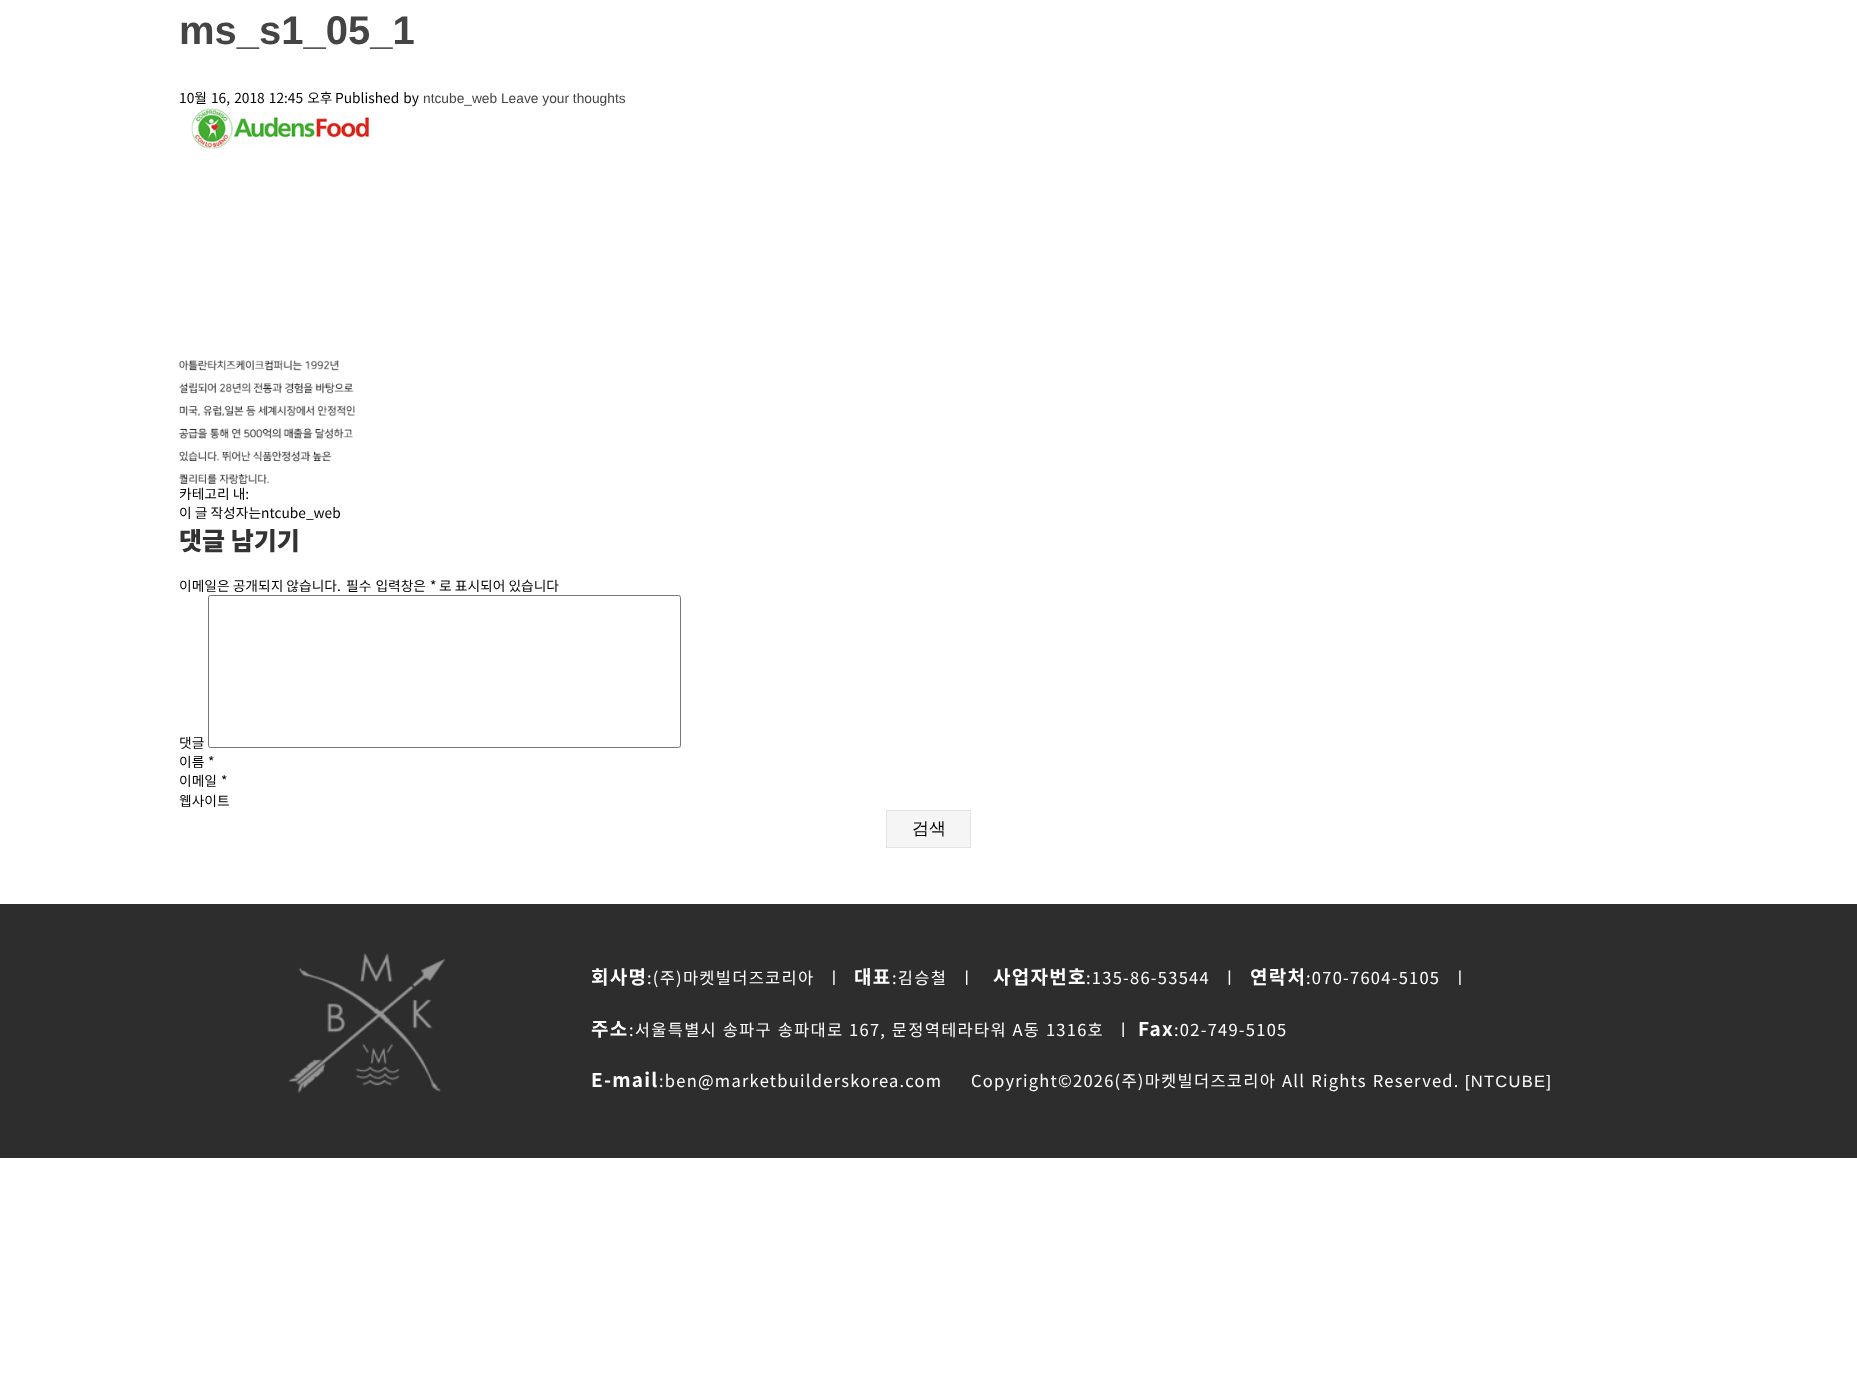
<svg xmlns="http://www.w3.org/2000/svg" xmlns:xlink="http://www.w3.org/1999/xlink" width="1857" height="1374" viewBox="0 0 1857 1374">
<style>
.cls-1{font:bold 40px Liberation Sans;fill:#444444}
.cls-2{font:13.75px Noto Sans KR;fill:#000000}
.cls-3{font:13.75px Liberation Sans;fill:#444444}
.cls-4{font:900 25px Noto Sans KR;fill:#333333}
.cls-5{font:500 17px WenQuanYi Zen Hei;fill:#000000}
.cls-6{font:bold 19px Noto Sans KR;letter-spacing:1.25px;fill:#ffffff}
.cls-7{font:16.5px Noto Sans KR;letter-spacing:1.25px;fill:#ffffff}
.cls-8{font:16.5px Liberation Sans;letter-spacing:1.25px;fill:#ffffff}
</style>
<rect width="100%" height="100%" fill="#ffffff"/>
<image xlink:href="image0.png" x="178" y="108" width="191" height="376"/>
<rect fill="none" stroke="#767676" x="208.5" y="595.5" width="472" height="152" rx="2"/>
<rect fill="#f5f5f5" stroke="#e3e3e3" x="886.5" y="810.5" width="84" height="37"/>
<rect fill="#2d2d2d" x="0" y="904" width="1857" height="254"/>
<image xlink:href="image1.png" x="288" y="953" width="157" height="140"/>
<text class="cls-1" x="179" y="44">ms_s1_05_1</text>
<text class="cls-2" x="179" y="103" word-spacing="1">10월 16, 2018 12:45 오후</text>
<text class="cls-2" x="335" y="103" word-spacing="1">Published by</text>
<text class="cls-3" x="423" y="103">ntcube_web Leave your thoughts</text>
<text class="cls-2"><tspan x="179" y="499">카테고리 내:</tspan><tspan x="179" y="518">이 글 작성자는ntcube_web</tspan></text>
<text class="cls-4" x="179" y="550">댓글 남기기</text>
<text class="cls-2" x="179" y="591">이메일은 공개되지 않습니다.</text>
<text class="cls-2" x="346" y="591" word-spacing="1">필수 입력창은</text>
<text class="cls-2" x="430" y="591">*</text>
<text class="cls-2" x="439" y="591">로 표시되어 있습니다</text>
<text class="cls-2"><tspan x="179" y="748">댓글</tspan><tspan x="179" y="767">이름</tspan></text>
<text class="cls-2" x="208" y="767">*</text>
<text class="cls-2" x="179" y="786">이메일</text>
<text class="cls-2" x="221" y="786">*</text>
<text class="cls-2" x="179" y="806">웹사이트</text>
<text class="cls-5" x="912" y="834">검색</text>
<text class="cls-6" x="591" y="984">회사명</text>
<text class="cls-7" xml:space="preserve" x="647" y="984" word-spacing="1">:(주)마켓빌더즈코리아  ㅣ</text>
<text class="cls-6" x="854" y="984">대표</text>
<text class="cls-7" xml:space="preserve" x="892" y="984" word-spacing="1">:김승철  ㅣ</text>
<text class="cls-6" x="993" y="984">사업자번호</text>
<text class="cls-7" xml:space="preserve" x="1086" y="984" word-spacing="1">:135-86-53544  ㅣ</text>
<text class="cls-6" x="1250" y="984">연락처</text>
<text class="cls-7" xml:space="preserve" x="1306" y="984" word-spacing="1">:070-7604-5105  ㅣ</text>
<text class="cls-6" x="591" y="1036">주소</text>
<text class="cls-7" xml:space="preserve" x="629" y="1036" word-spacing="0.75">:서울특별시 송파구 송파대로 167, 문정역테라타워 A동 1316호  ㅣ</text>
<text class="cls-6" x="1138" y="1036">Fax</text>
<text class="cls-7" x="1174" y="1036">:02-749-5105</text>
<text class="cls-6" x="591" y="1087">E-mail</text>
<text class="cls-7" x="659" y="1087">:ben@marketbuilderskorea.com</text>
<text class="cls-7" x="971" y="1087" word-spacing="1">Copyright©2026(주)마켓빌더즈코리아 All Rights Reserved.</text>
<text class="cls-8" x="1465" y="1087">[NTCUBE]</text>
</svg>
